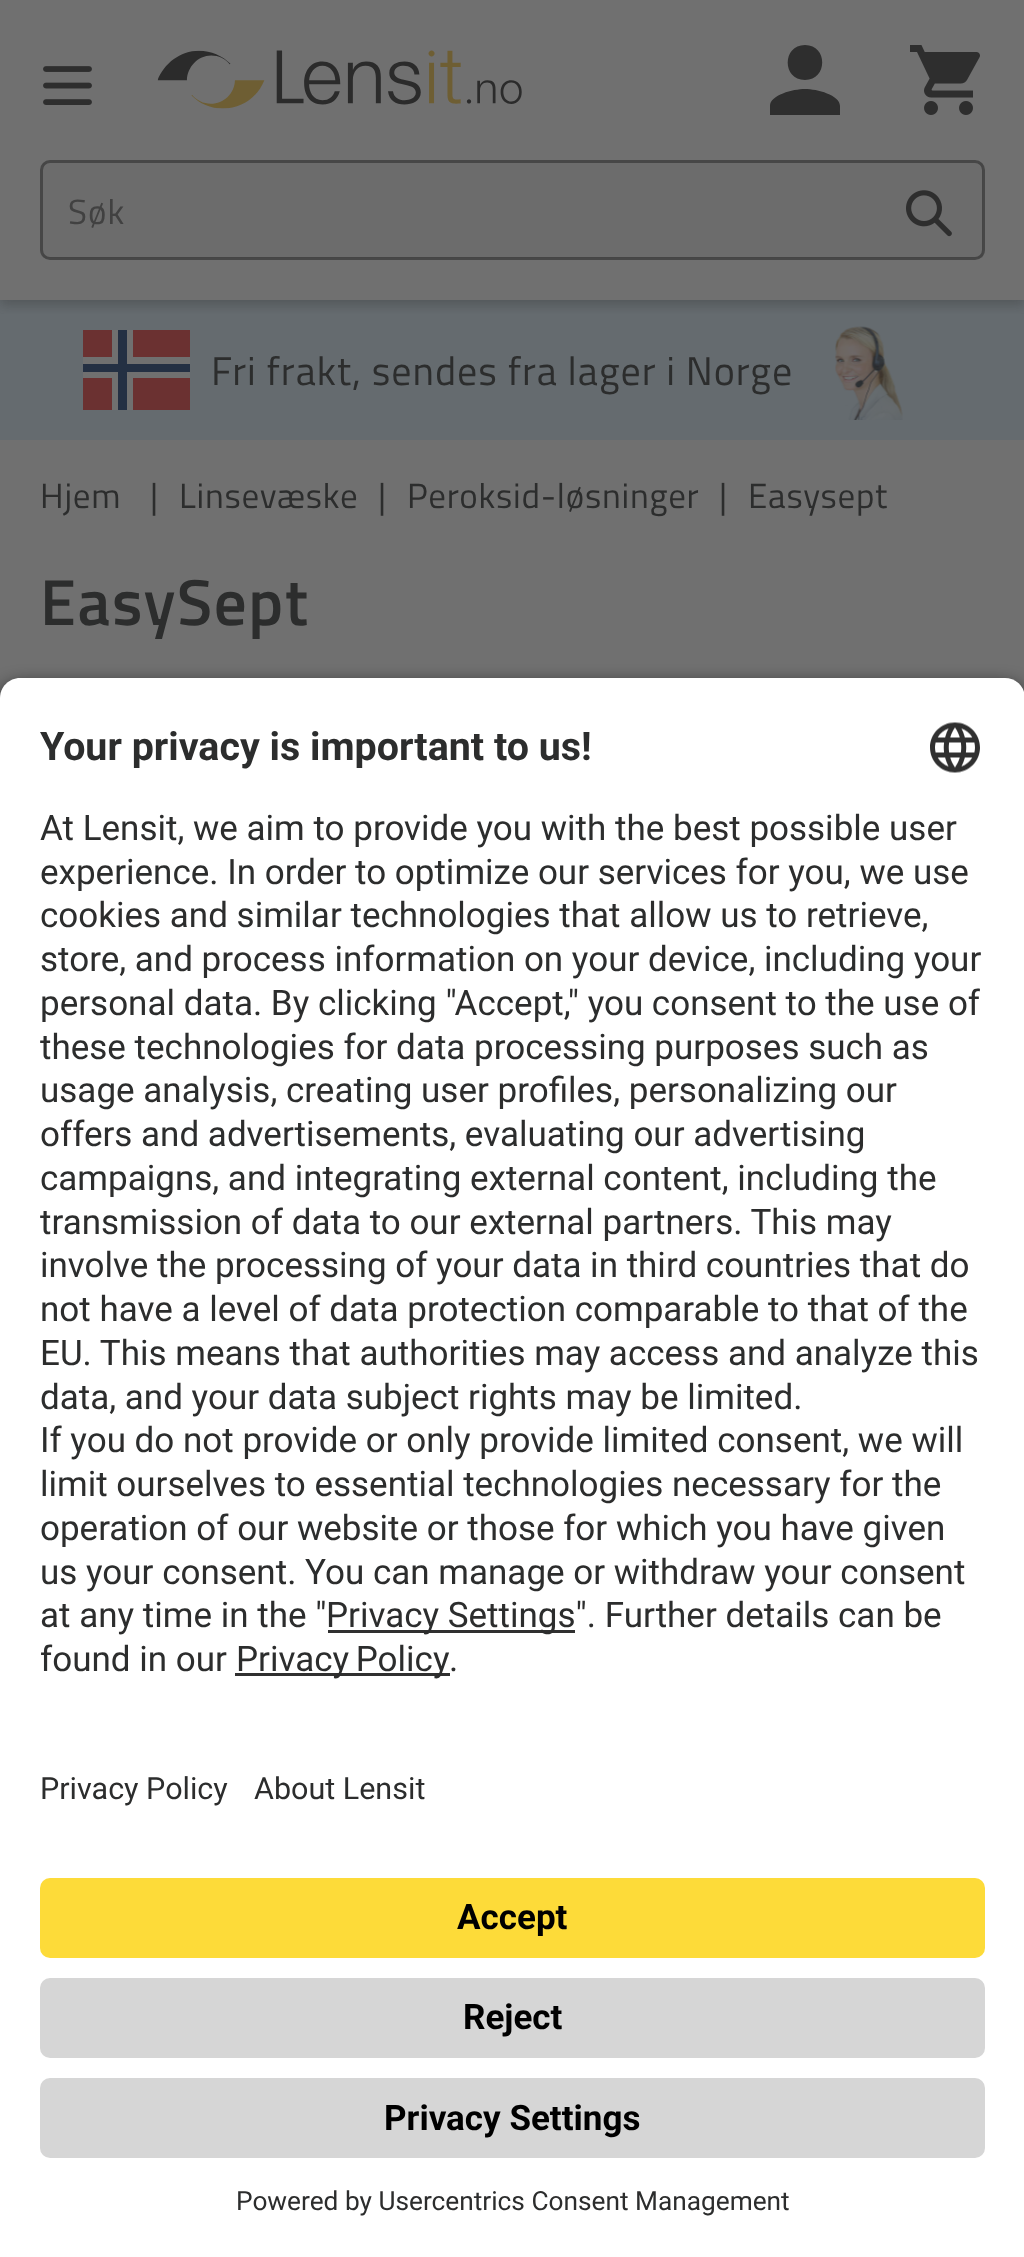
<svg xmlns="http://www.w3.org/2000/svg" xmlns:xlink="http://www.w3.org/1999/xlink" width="1024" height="2257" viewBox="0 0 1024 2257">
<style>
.cls-1{font:35px Titillium Web;letter-spacing:1px;fill:#414141}
.cls-2{font:40px Titillium Web;letter-spacing:1px;fill:#2c2d2d}
.cls-3{font:35px Titillium Web;letter-spacing:0.75px;fill:#2c2d2d}
.cls-4{font:600 65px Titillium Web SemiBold;letter-spacing:1.5px;fill:#2c2d2d}
.cls-5{font:bold 39.4px Roboto;fill:#2c2d2d}
.cls-6{font:35px Roboto;fill:#2c2d2d}
.cls-7{font:30.5px Roboto;fill:#2c2d2d}
.cls-8{font:bold 35px Roboto;fill:#000000}
.cls-9{font:26.25px Roboto;fill:#2c2d2d}
</style>
<defs>
<clipPath id="clip1"><rect x="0" y="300" width="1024" height="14"/></clipPath>
</defs>
<rect width="100%" height="100%" fill="#707070"/>
<rect fill="#656b6f" x="0" y="300" width="1024" height="140"/>
<g clip-path="url(#clip1)">
<rect fill="#242424" fill-opacity="0.28" filter="blur(6px)" x="0" y="5" width="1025" height="300"/>
</g>
<image xlink:href="image0.png" x="43" y="66" width="49" height="39"/>
<image xlink:href="image1.png" x="157" y="50" width="365" height="59"/>
<path fill="#2e2e2e" d="M805 80C828 80 828 45 805 45C782 45 782 80 805 80ZM805 89C793 89 770 95 770 106V115H840V106C840 95 817 89 805 89Z"/>
<image xlink:href="image2.png" x="910" y="45" width="70" height="70"/>
<rect fill="none" stroke="#474747" stroke-width="3" x="41.5" y="161.5" width="942" height="97" rx="8.5"/>
<rect fill="#242424" fill-opacity="0.04" x="43" y="163" width="940" height="95"/>
<image xlink:href="image3.png" x="906" y="190" width="46" height="47"/>
<rect fill="#6b3131" x="83" y="330" width="107" height="80"/>
<rect fill="#707070" x="112" y="330" width="21" height="80"/>
<rect fill="#707070" x="83" y="357" width="107" height="21"/>
<rect fill="#243043" x="118" y="330" width="9" height="80"/>
<rect fill="#243043" x="83" y="364" width="107" height="8"/>
<image xlink:href="image4.png" x="835" y="326" width="68" height="94"/>
<rect fill="#000000" fill-opacity="0.8" filter="blur(9px)" x="0" y="685" width="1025" height="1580" rx="20"/>
<path fill="#ffffff" d="M20 678H1005C1016 678 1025 687 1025 698V1733H0V698C0 687 9 678 20 678Z"/>
<image xlink:href="image5.png" x="930" y="722" width="50" height="51"/>
<rect fill="#303030" x="328" y="1630" width="247" height="3"/>
<rect fill="#303030" x="235" y="1673" width="215" height="3"/>
<rect fill="#ffffff" x="0" y="1733" width="1024" height="524"/>
<rect fill="#fddb39" x="40" y="1878" width="945" height="80" rx="10"/>
<rect fill="#d6d6d6" x="40" y="1978" width="945" height="80" rx="10"/>
<rect fill="#d6d6d6" x="40" y="2078" width="945" height="80" rx="10"/>
<text class="cls-1" x="68" y="224">Søk</text>
<text class="cls-2" x="211" y="385">Fri frakt, sendes fra lager i Norge</text>
<text class="cls-3" x="40" y="508">Hjem</text>
<text class="cls-3" x="150" y="508">|</text>
<text class="cls-3" x="179" y="508">Linsevæske</text>
<text class="cls-3" x="378" y="508">|</text>
<text class="cls-3" x="407" y="508">Peroksid-løsninger</text>
<text class="cls-3" x="719" y="508">|</text>
<text class="cls-3" x="748" y="508">Easysept</text>
<text class="cls-4" x="40" y="625">EasySept</text>
<text class="cls-5" x="40" y="760">Your privacy is important to us!</text>
<text class="cls-6"><tspan x="40" y="840">At Lensit, we aim to provide you with the best possible user</tspan><tspan x="40" y="884">experience. In order to optimize our services for you, we use</tspan><tspan x="40" y="927">cookies and similar technologies that allow us to retrieve,</tspan><tspan x="40" y="971">store, and process information on your device, including your</tspan><tspan x="40" y="1015">personal data. By clicking "Accept," you consent to the use of</tspan><tspan x="40" y="1059">these technologies for data processing purposes such as</tspan><tspan x="40" y="1102">usage analysis, creating user profiles, personalizing our</tspan><tspan x="40" y="1146">offers and advertisements, evaluating our advertising</tspan><tspan x="40" y="1190">campaigns, and integrating external content, including the</tspan><tspan x="40" y="1234">transmission of data to our external partners. This may</tspan><tspan x="40" y="1277">involve the processing of your data in third countries that do</tspan><tspan x="40" y="1321">not have a level of data protection comparable to that of the</tspan><tspan x="40" y="1365">EU. This means that authorities may access and analyze this</tspan><tspan x="40" y="1409">data, and your data subject rights may be limited.</tspan><tspan x="40" y="1452">If you do not provide or only provide limited consent, we will</tspan><tspan x="40" y="1496">limit ourselves to essential technologies necessary for the</tspan><tspan x="40" y="1540">operation of our website or those for which you have given</tspan><tspan x="40" y="1584">us your consent. You can manage or withdraw your consent</tspan><tspan x="40" y="1627">at any time in the "</tspan></text>
<text class="cls-6" x="326" y="1627">Privacy Settings". Further details can be</text>
<text class="cls-6" x="40" y="1671">found in our</text>
<text class="cls-6" x="236" y="1671" word-spacing="-2">Privacy Policy</text>
<text class="cls-6" x="449" y="1671">.</text>
<text class="cls-7" x="40" y="1799">Privacy Policy</text>
<text class="cls-7" x="254" y="1799">About Lensit</text>
<text class="cls-8" x="457" y="1929">Accept</text>
<text class="cls-8" x="463" y="2029">Reject</text>
<text class="cls-8" x="384" y="2130">Privacy Settings</text>
<text class="cls-9" x="236" y="2210">Powered by Usercentrics Consent Management</text>
</svg>
